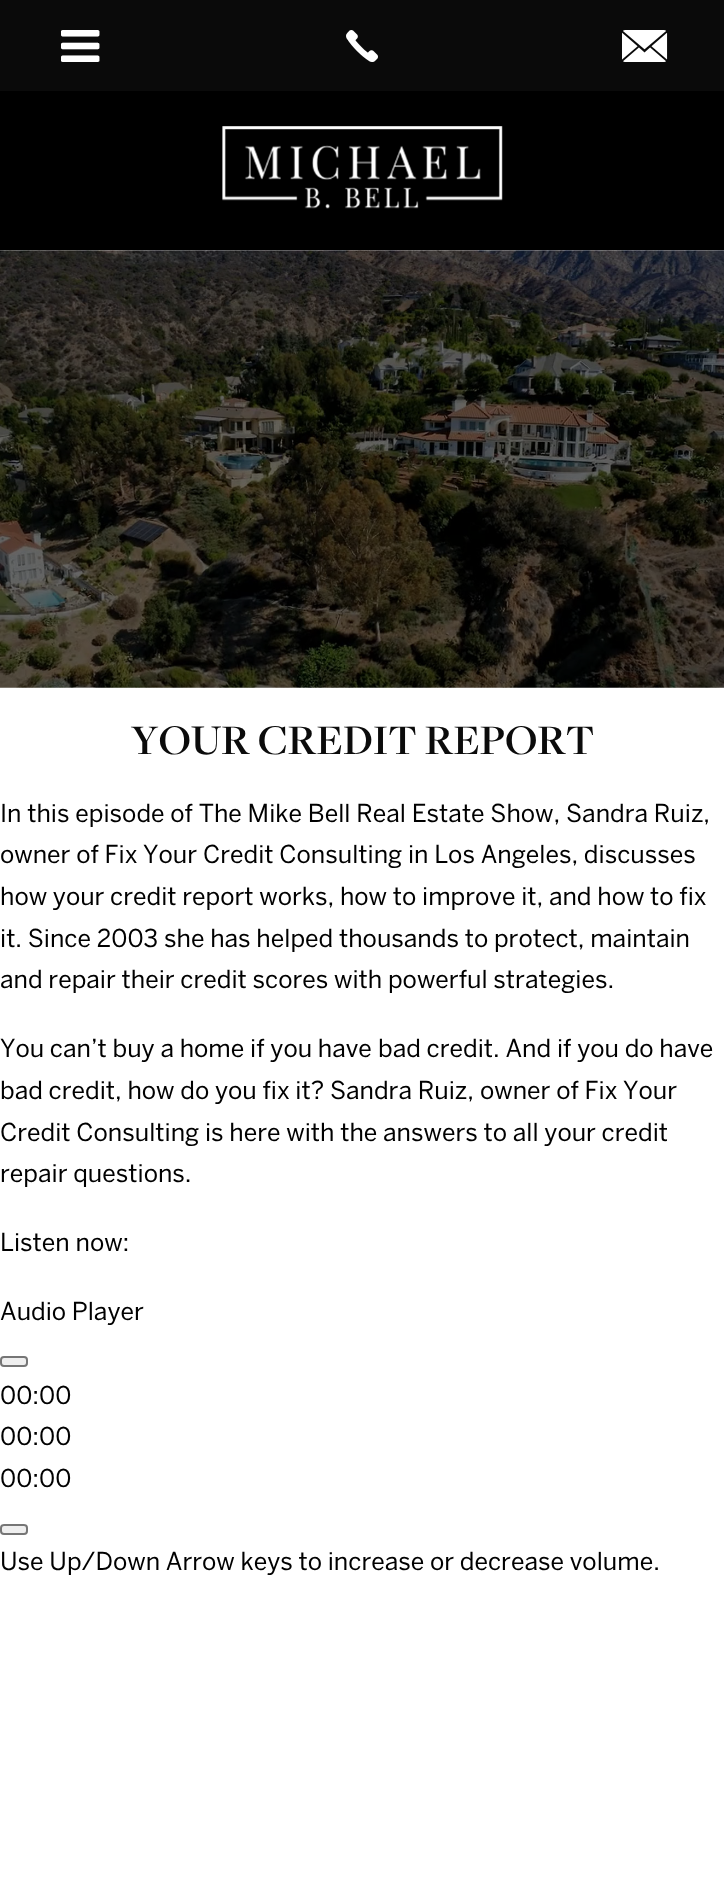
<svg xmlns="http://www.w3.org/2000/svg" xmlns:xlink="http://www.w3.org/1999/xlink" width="724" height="1877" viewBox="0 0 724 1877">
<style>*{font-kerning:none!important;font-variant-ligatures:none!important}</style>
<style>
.cls-1{font:32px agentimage;fill:#ffffff}
.cls-2{font:600 43.75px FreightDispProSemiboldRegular;fill:#0b0b0b}
.cls-3{font:24.5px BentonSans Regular;fill:#000000}
</style>
<rect width="100%" height="100%" fill="#ffffff"/>
<rect fill="#0a0a0a" x="0" y="0" width="724" height="91"/>
<rect fill="#000000" x="0" y="91" width="724" height="159"/>
<image xlink:href="image0.png" x="222" y="126" width="281" height="83"/>
<image xlink:href="image1.png" x="0" y="250" width="724" height="438"/>
<rect fill="#efefef" stroke="#767676" stroke-width="2" x="1" y="1357" width="26" height="9" rx="3"/>
<rect fill="#efefef" stroke="#767676" stroke-width="2" x="1" y="1525" width="26" height="9" rx="3"/>
<text class="cls-1" x="61" y="60">򰁰</text>
<text class="cls-1" x="346" y="60">򰁩</text>
<text class="cls-1" x="622" y="60">򰄢</text>
<text class="cls-2" x="131" y="754">YOUR CREDIT REPORT</text>
<text class="cls-3" x="0" y="822">In this episode of The Mike Bell Real Estate Show,</text>
<text class="cls-3" x="566" y="822">Sandra Ruiz,</text>
<text class="cls-3" x="0" y="863">owner of Fix Your</text>
<text class="cls-3" x="203" y="863">Credit Consulting in Los Angeles, discusses</text>
<text class="cls-3" x="0" y="905">how your credit report works, how to</text>
<text class="cls-3" x="422" y="905">improve it, and how to fix</text>
<text class="cls-3"><tspan x="0" y="947">it. Since 2003 she has helped thousands to protect, maintain</tspan><tspan x="0" y="988">and repair their credit scores with powerful strategies.</tspan></text>
<text class="cls-3" x="0" y="1057">You can’t buy a home if you have</text>
<text class="cls-3" x="378" y="1057">bad credit. And if you do have</text>
<text class="cls-3" x="0" y="1099">bad credit, how do you fix it? Sandra Ruiz,</text>
<text class="cls-3" x="480" y="1099">owner of Fix Your</text>
<text class="cls-3"><tspan x="0" y="1141">Credit Consulting is here with the answers to all your credit</tspan><tspan x="0" y="1182">repair questions.</tspan></text>
<text class="cls-3" x="0" y="1251">Listen now:</text>
<text class="cls-3" x="0" y="1320">Audio Player</text>
<text class="cls-3"><tspan x="0" y="1404">00:00</tspan><tspan x="0" y="1445">00:00</tspan><tspan x="0" y="1487">00:00</tspan></text>
<text class="cls-3" x="0" y="1570">Use Up/Down Arrow keys to increase</text>
<text class="cls-3" x="430" y="1570">or decrease volume.</text>
</svg>
